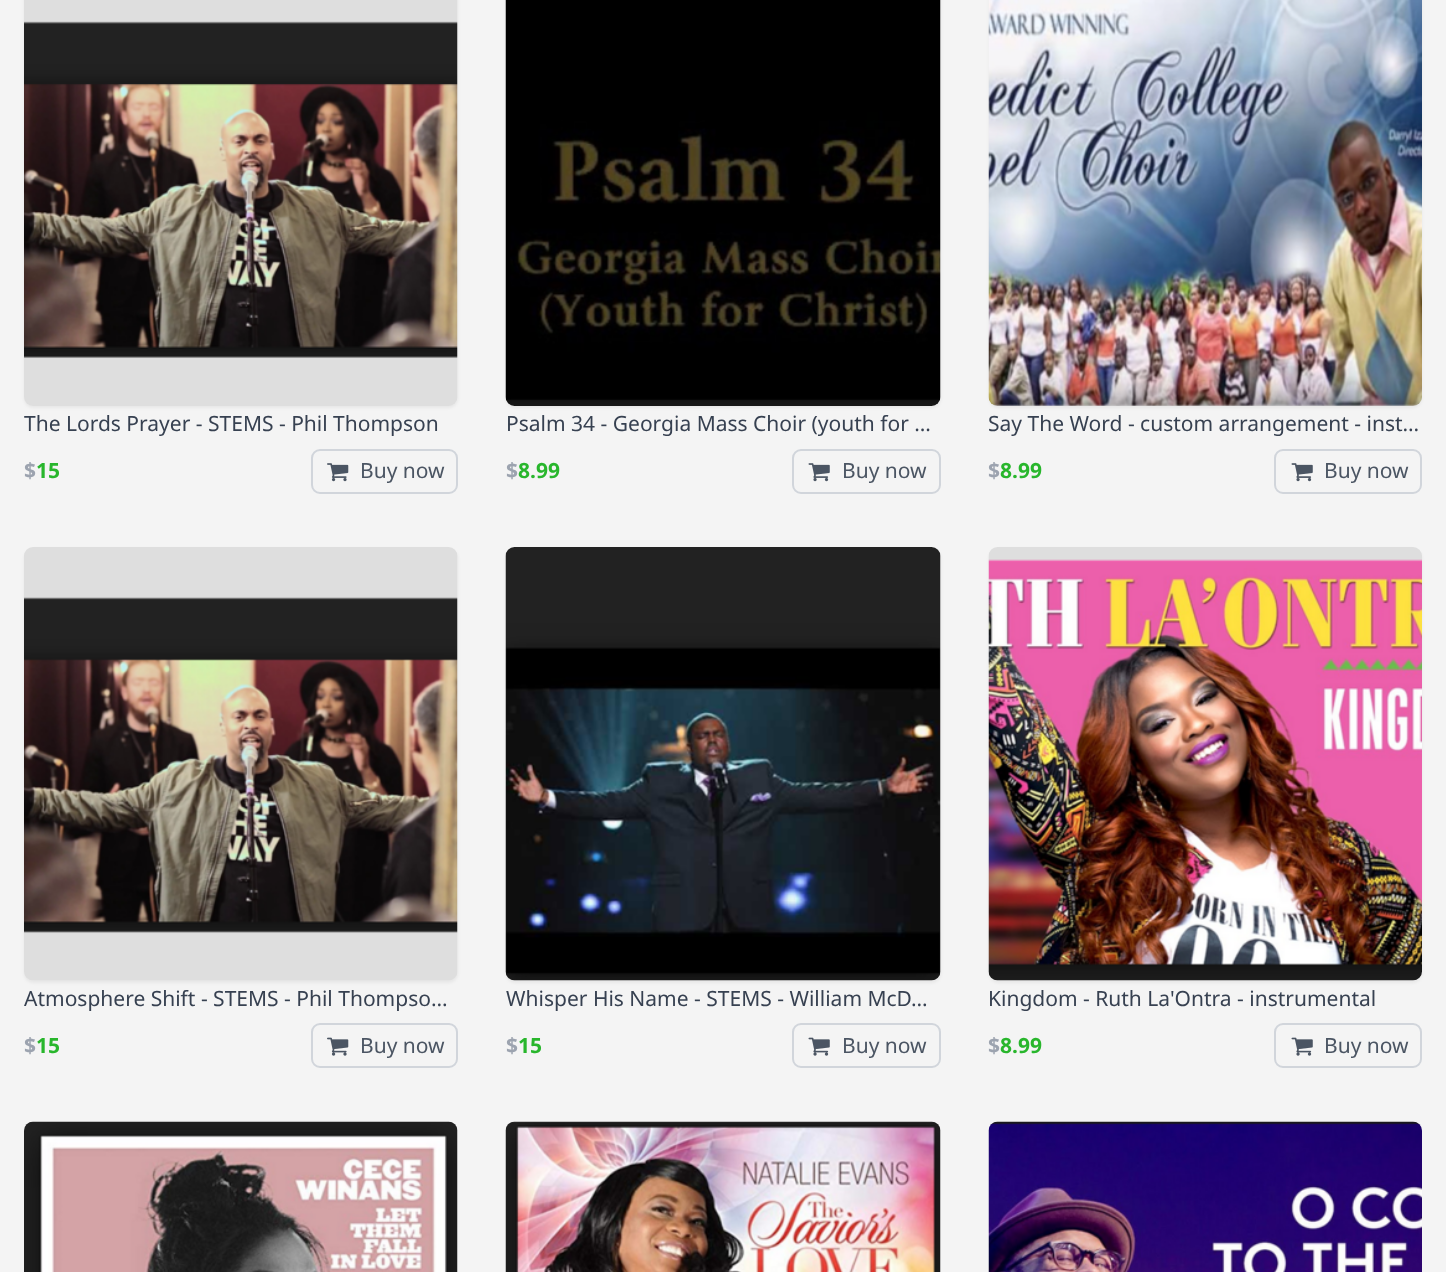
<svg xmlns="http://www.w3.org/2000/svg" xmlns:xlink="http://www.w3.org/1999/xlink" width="1446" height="1272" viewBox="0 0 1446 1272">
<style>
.cls-1{font:21px Noto Sans;fill:#374151}
.cls-2{font:bold 21px Noto Sans;fill:#9ca3af}
.cls-3{font:bold 21px Noto Sans;fill:#28b62c}
.cls-4{font:21px Noto Sans;fill:#4b5563}
</style>
<rect width="100%" height="100%" fill="#f4f4f4"/>
<rect fill="#000000" fill-opacity="0.05" filter="blur(1.5px)" x="24" y="-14" width="434" height="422" rx="9"/>
<image xlink:href="image0.png" x="24" y="0" width="434" height="406"/>
<rect fill="none" stroke="#d1d5db" stroke-width="2" x="312" y="450" width="145" height="43" rx="8"/>
<image xlink:href="image1.png" x="327" y="463" width="22" height="19"/>
<rect fill="#000000" fill-opacity="0.05" filter="blur(1.5px)" x="506" y="-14" width="435" height="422" rx="9"/>
<image xlink:href="image2.png" x="505" y="0" width="436" height="406"/>
<rect fill="none" stroke="#d1d5db" stroke-width="2" x="793" y="450" width="147" height="43" rx="8"/>
<image xlink:href="image3.png" x="808" y="463" width="22" height="19"/>
<rect fill="#000000" fill-opacity="0.05" filter="blur(1.5px)" x="989" y="-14" width="433" height="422" rx="9"/>
<image xlink:href="image4.png" x="988" y="0" width="434" height="406"/>
<rect fill="none" stroke="#d1d5db" stroke-width="2" x="1275" y="450" width="146" height="43" rx="8"/>
<image xlink:href="image3.png" x="1291" y="463" width="22" height="19"/>
<rect fill="#000000" fill-opacity="0.05" filter="blur(1.5px)" x="24" y="549" width="434" height="434" rx="9"/>
<image xlink:href="image5.png" x="24" y="547" width="434" height="434"/>
<rect fill="none" stroke="#d1d5db" stroke-width="2" x="312" y="1024" width="145" height="43" rx="8"/>
<image xlink:href="image6.png" x="327" y="1037" width="22" height="19"/>
<rect fill="#000000" fill-opacity="0.05" filter="blur(1.5px)" x="506" y="549" width="435" height="434" rx="9"/>
<image xlink:href="image7.png" x="505" y="547" width="436" height="434"/>
<rect fill="none" stroke="#d1d5db" stroke-width="2" x="793" y="1024" width="147" height="43" rx="8"/>
<image xlink:href="image8.png" x="808" y="1037" width="22" height="19"/>
<rect fill="#000000" fill-opacity="0.05" filter="blur(1.5px)" x="989" y="549" width="433" height="434" rx="9"/>
<image xlink:href="image9.png" x="988" y="547" width="434" height="434"/>
<rect fill="none" stroke="#d1d5db" stroke-width="2" x="1275" y="1024" width="146" height="43" rx="8"/>
<image xlink:href="image8.png" x="1291" y="1037" width="22" height="19"/>
<image xlink:href="image10.png" x="24" y="1121" width="434" height="151"/>
<image xlink:href="image11.png" x="505" y="1121" width="436" height="151"/>
<image xlink:href="image12.png" x="988" y="1121" width="434" height="151"/>
<text class="cls-1" x="24" y="431">The Lords Prayer - STEMS - Phil Thompson</text>
<text class="cls-2" x="24" y="478">$</text>
<text class="cls-3" x="36" y="478">15</text>
<text class="cls-4" x="360" y="478">Buy now</text>
<text class="cls-1" x="506" y="431">Psalm 34 - Georgia Mass Choir (youth for …</text>
<text class="cls-2" x="506" y="478">$</text>
<text class="cls-3" x="518" y="478">8.99</text>
<text class="cls-4" x="842" y="478">Buy now</text>
<text class="cls-1" x="988" y="431">Say The Word - custom arrangement - inst…</text>
<text class="cls-2" x="988" y="478">$</text>
<text class="cls-3" x="1000" y="478">8.99</text>
<text class="cls-4" x="1324" y="478">Buy now</text>
<text class="cls-1" x="24" y="1006">Atmosphere Shift - STEMS - Phil Thompso…</text>
<text class="cls-2" x="24" y="1053">$</text>
<text class="cls-3" x="36" y="1053">15</text>
<text class="cls-4" x="360" y="1053">Buy now</text>
<text class="cls-1" x="506" y="1006">Whisper His Name - STEMS - William McD…</text>
<text class="cls-2" x="506" y="1053">$</text>
<text class="cls-3" x="518" y="1053">15</text>
<text class="cls-4" x="842" y="1053">Buy now</text>
<text class="cls-1" x="988" y="1006">Kingdom - Ruth La'Ontra - instrumental</text>
<text class="cls-2" x="988" y="1053">$</text>
<text class="cls-3" x="1000" y="1053">8.99</text>
<text class="cls-4" x="1324" y="1053">Buy now</text>
</svg>
